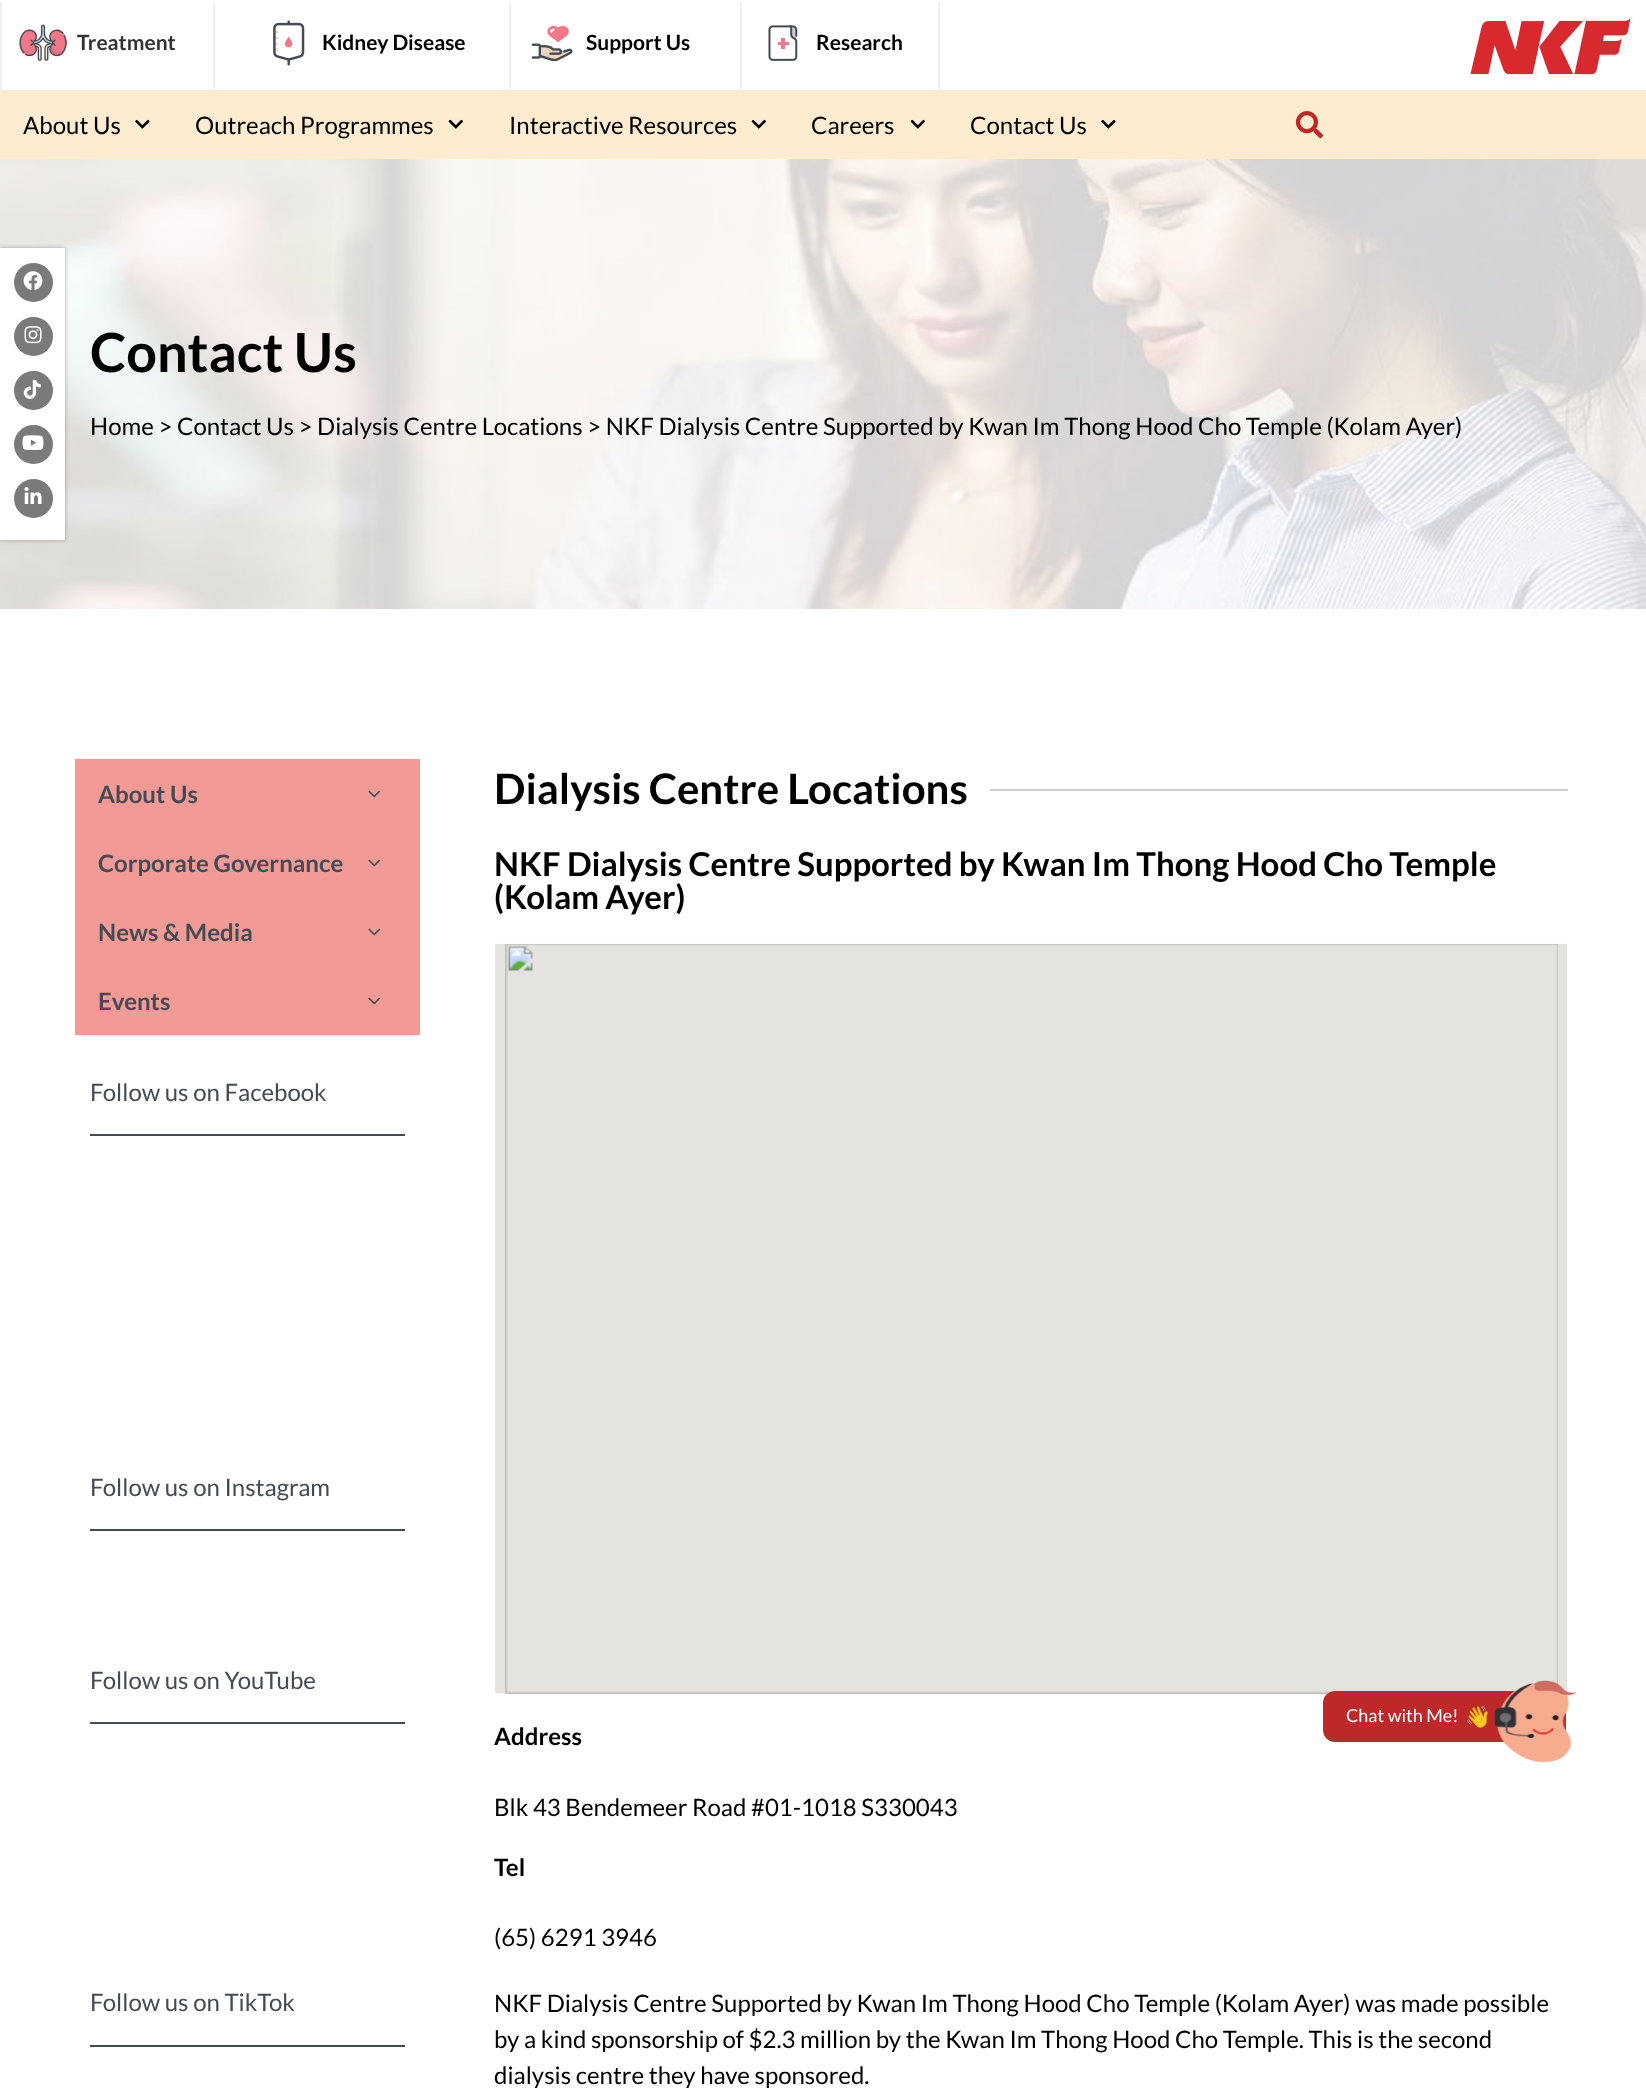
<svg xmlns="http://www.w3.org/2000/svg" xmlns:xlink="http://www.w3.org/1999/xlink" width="1646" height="2089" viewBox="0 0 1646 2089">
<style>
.cls-1{font:bold 21px Lato;fill:#333333}
.cls-2{font:bold 21px Lato;fill:#000000}
.cls-3{font:24px Lato;fill:#000000}
.cls-4{font:bold 54px Lato;fill:#000000}
.cls-5{font:bold 24px Lato;fill:#454b54}
.cls-6{font:24px Lato;fill:#454b54}
.cls-7{font:bold 42px Lato;fill:#000000}
.cls-8{font:bold 33px Lato;fill:#000000}
.cls-9{font:bold 24px Lato;fill:#000000}
.cls-10{font:18px Lato;fill:#ffffff}
.cls-11{font:21px Noto Color Emoji;fill:#007dfc}
</style>
<rect width="100%" height="100%" fill="#ffffff"/>
<rect fill="#f0f0f0" x="213" y="2" width="2" height="88"/>
<rect fill="#f0f0f0" x="0" y="2" width="2" height="88"/>
<image xlink:href="image0.png" x="18" y="24" width="49" height="37"/>
<rect fill="#f0f0f0" x="509" y="2" width="2" height="88"/>
<image xlink:href="image1.png" x="273" y="20" width="32" height="46"/>
<rect fill="#f0f0f0" x="740" y="2" width="2" height="88"/>
<image xlink:href="image2.png" x="531" y="25" width="42" height="37"/>
<rect fill="#f0f0f0" x="938" y="2" width="2" height="88"/>
<image xlink:href="image3.png" x="768" y="25" width="30" height="36"/>
<image xlink:href="image4.png" x="1470" y="17" width="161" height="58"/>
<rect fill="#feecd1" x="0" y="90" width="1646" height="69"/>
<image xlink:href="image5.png" x="135" y="119" width="15" height="10"/>
<image xlink:href="image6.png" x="448" y="119" width="15" height="10"/>
<image xlink:href="image6.png" x="751" y="119" width="15" height="10"/>
<image xlink:href="image6.png" x="910" y="119" width="15" height="10"/>
<image xlink:href="image5.png" x="1101" y="119" width="15" height="10"/>
<image xlink:href="image7.png" x="1295" y="111" width="29" height="28"/>
<image xlink:href="image13.png" x="0" y="159" width="1646" height="450"/>
<rect fill="#000000" fill-opacity="0.3" filter="blur(2px)" x="0" y="248" width="65" height="292"/>
<rect fill="#ffffff" x="0" y="248" width="65" height="292"/>
<circle fill="#7a7a7a" cx="33.5" cy="282.5" r="19.5"/>
<image xlink:href="image8.png" x="23" y="271" width="20" height="19"/>
<circle fill="#7a7a7a" cx="33.5" cy="336.5" r="19.5"/>
<image xlink:href="image9.png" x="24" y="326" width="18" height="18"/>
<circle fill="#7a7a7a" cx="33.5" cy="390.5" r="19.5"/>
<image xlink:href="image10.png" x="23" y="380" width="18" height="19"/>
<circle fill="#7a7a7a" cx="33.5" cy="444.5" r="19.5"/>
<image xlink:href="image11.png" x="22" y="435" width="22" height="15"/>
<circle fill="#7a7a7a" cx="33.5" cy="498.5" r="19.5"/>
<image xlink:href="image12.png" x="24" y="487" width="18" height="17"/>
<rect fill="#f29b96" x="75" y="759" width="345" height="276"/>
<image xlink:href="image14.png" x="368" y="790" width="13" height="8"/>
<image xlink:href="image14.png" x="368" y="859" width="13" height="8"/>
<image xlink:href="image14.png" x="368" y="928" width="13" height="8"/>
<image xlink:href="image14.png" x="368" y="997" width="13" height="8"/>
<rect fill="#454b54" x="90" y="1134" width="315" height="2"/>
<rect fill="#454b54" x="90" y="1529" width="315" height="2"/>
<rect fill="#454b54" x="90" y="1722" width="315" height="2"/>
<rect fill="#454b54" x="90" y="2045" width="315" height="2"/>
<rect fill="#cfcfcf" x="990" y="789" width="578" height="2"/>
<image xlink:href="image15.png" x="495" y="943" width="1073" height="751"/>
<rect fill="#bf2828" x="1323" y="1691" width="243" height="51" rx="12"/>
<image xlink:href="image16.png" x="1494" y="1680" width="83" height="83"/>
<text class="cls-1" x="77" y="50">Treatment</text>
<text class="cls-2" x="322" y="50">Kidney Disease</text>
<text class="cls-2" x="586" y="50">Support Us</text>
<text class="cls-2" x="816" y="50">Research</text>
<text class="cls-3" x="23" y="134">About Us</text>
<text class="cls-3" x="195" y="134">Outreach Programmes</text>
<text class="cls-3" x="509" y="134">Interactive Resources</text>
<text class="cls-3" x="811" y="134">Careers</text>
<text class="cls-3" x="970" y="134">Contact Us</text>
<text class="cls-4" x="90" y="372">Contact Us</text>
<text class="cls-3" x="90" y="435">Home &gt; Contact Us &gt; Dialysis Centre Locations &gt; NKF Dialysis Centre Supported by Kwan Im Thong Hood Cho Temple (Kolam Ayer)</text>
<text class="cls-5" x="98" y="803">About Us</text>
<text class="cls-5" x="98" y="872">Corporate Governance</text>
<text class="cls-5" x="98" y="941">News &amp; Media</text>
<text class="cls-5" x="98" y="1010">Events</text>
<text class="cls-6" x="90" y="1101">Follow us on Facebook</text>
<text class="cls-6" x="90" y="1496">Follow us on Instagram</text>
<text class="cls-6" x="90" y="1689">Follow us on YouTube</text>
<text class="cls-6" x="90" y="2011">Follow us on TikTok</text>
<text class="cls-7" x="494" y="804">Dialysis Centre Locations</text>
<text class="cls-8"><tspan x="494" y="876">NKF Dialysis Centre Supported by Kwan Im Thong Hood Cho Temple</tspan><tspan x="494" y="909">(Kolam Ayer)</tspan></text>
<text class="cls-9" x="494" y="1745">Address</text>
<text class="cls-3" x="494" y="1816">Blk 43 Bendemeer Road #01-1018 S330043</text>
<text class="cls-9" x="494" y="1876">Tel</text>
<text class="cls-3" x="494" y="1946">(65) 6291 3946</text>
<text class="cls-3"><tspan x="494" y="2012">NKF Dialysis Centre Supported by Kwan Im Thong Hood Cho Temple (Kolam Ayer) was made possible</tspan><tspan x="494" y="2048">by a kind sponsorship of $2.3 million by the Kwan Im Thong Hood Cho Temple. This is the second</tspan><tspan x="494" y="2084">dialysis centre they have sponsored.</tspan></text>
<text class="cls-10" x="1346" y="1722">Chat with Me!</text>
<text class="cls-11" x="1465" y="1724">👋</text>
</svg>
